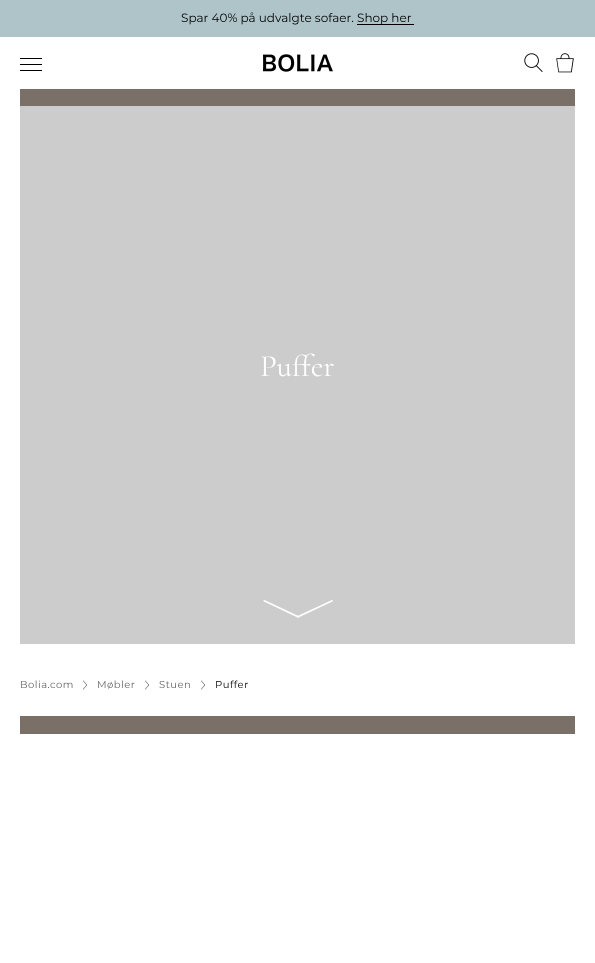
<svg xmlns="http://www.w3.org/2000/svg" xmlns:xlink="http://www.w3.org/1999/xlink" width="595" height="963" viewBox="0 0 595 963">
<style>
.cls-1{font:12px Montserrat;fill:#000000}
.cls-2{font:31px Cormorant;fill:#ffffff}
.cls-3{font:10px Montserrat;letter-spacing:0.5px;fill:#666666}
.cls-4{font:10px Montserrat;letter-spacing:0.5px;fill:#000000}
</style>
<rect width="100%" height="100%" fill="#ffffff"/>
<rect fill="#afc4c9" x="0" y="0" width="595" height="37"/>
<rect fill="#000000" x="357" y="24" width="57" height="1"/>
<rect fill="#000000" x="20" y="58" width="22" height="1"/>
<rect fill="#000000" x="20" y="64" width="22" height="1"/>
<rect fill="#000000" x="20" y="70" width="22" height="1"/>
<image xlink:href="image0.png" x="263" y="54" width="70" height="18"/>
<image xlink:href="image1.png" x="524" y="53" width="19" height="19"/>
<image xlink:href="image2.png" x="556" y="53" width="18" height="20"/>
<rect fill="#cccccc" x="20" y="106" width="555" height="538"/>
<rect fill="#7a7067" x="20" y="89" width="555" height="17"/>
<path fill="#ffffff" d="M264 601.5C263 601 263.5 599.5 264.5 600L298.5 616L299 616.5C299 617.5 298 618 297.5 617.5Z"/>
<path fill="#ffffff" d="M298.5 617.5C297.5 618 296.5 616.5 297.5 616L332 600H332.5C333 600.5 333 601 332.5 601.5Z"/>
<image xlink:href="image3.png" x="83" y="680" width="4" height="10"/>
<image xlink:href="image3.png" x="145" y="680" width="4" height="10"/>
<image xlink:href="image3.png" x="201" y="680" width="4" height="10"/>
<rect fill="#7a7067" x="20" y="716" width="555" height="18"/>
<text class="cls-1" x="181" y="22">Spar 40% på udvalgte sofaer.</text>
<text class="cls-1" x="357" y="22">Shop her</text>
<text class="cls-2" x="260" y="376">Puffer</text>
<text class="cls-3" x="20" y="688">Bolia.com</text>
<text class="cls-3" x="97" y="688">Møbler</text>
<text class="cls-3" x="159" y="688">Stuen</text>
<text class="cls-4" x="215" y="688">Puffer</text>
</svg>
